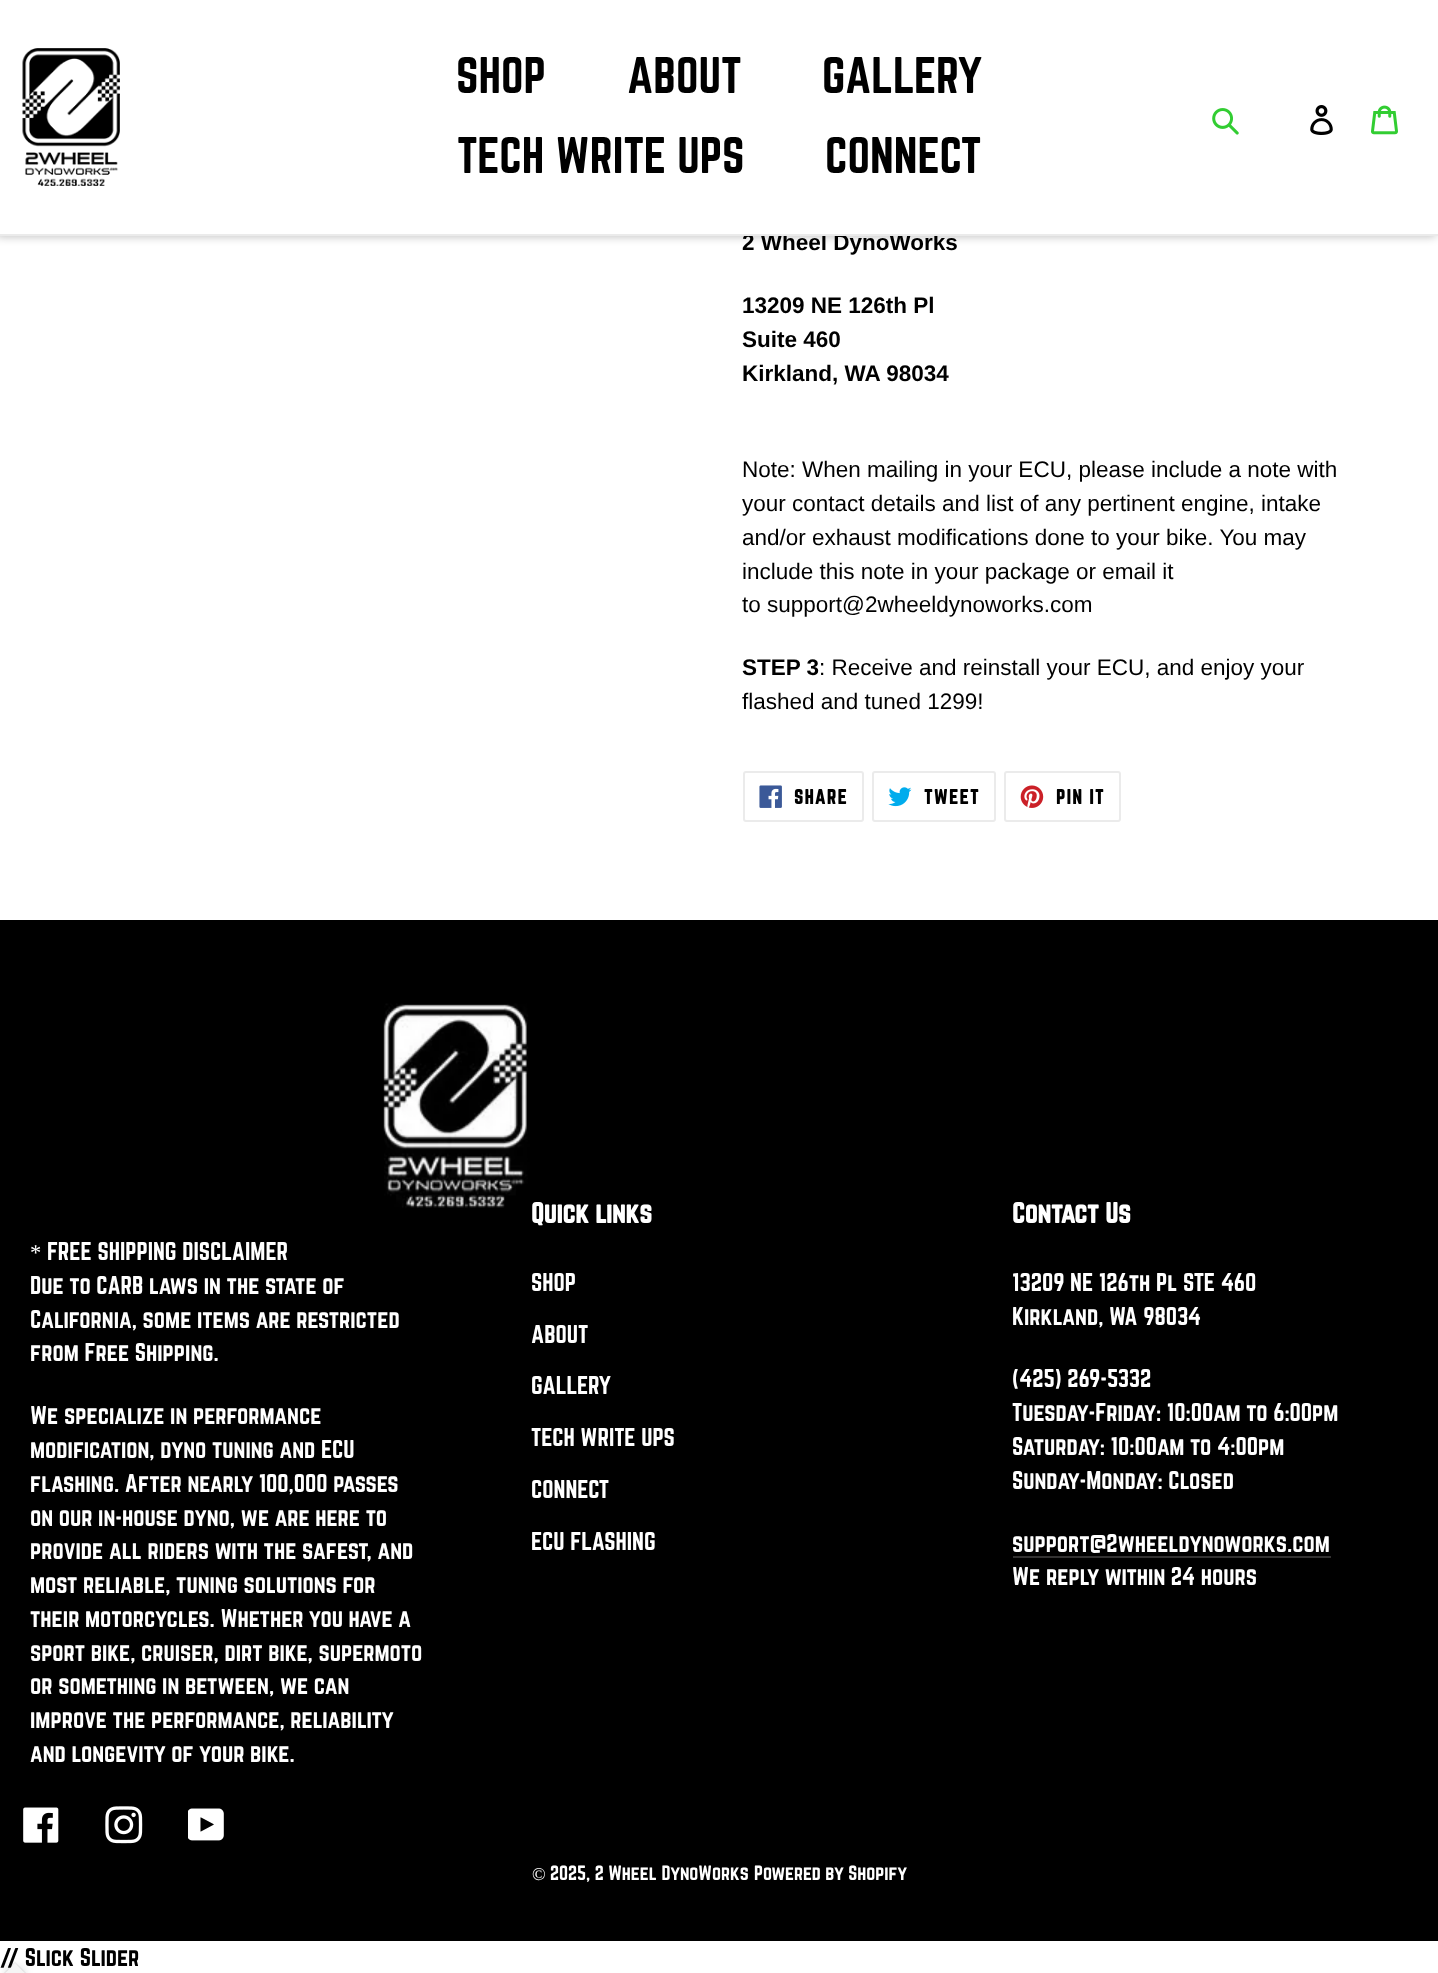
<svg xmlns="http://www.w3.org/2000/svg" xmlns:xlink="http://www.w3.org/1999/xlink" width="1438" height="1973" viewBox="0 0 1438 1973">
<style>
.cls-1{font:bold 22.5px Liberation Sans;fill:#000000}
.cls-2{font:45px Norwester;fill:#000000}
.cls-3{font:22.5px Liberation Sans;fill:#000000}
.cls-4{font:bold 18px Norwester;letter-spacing:1.5px;fill:#000000}
.cls-5{font:22.5px Liberation Serif;fill:#ffffff}
.cls-6{font:22.5px Norwester;fill:#ffffff}
.cls-7{font:bold 25.5px Norwester;fill:#ffffff}
.cls-8{font:18px Liberation Serif;fill:#ffffff}
.cls-9{font:18px Norwester;fill:#ffffff}
.cls-10{font:22.5px Norwester;fill:#000000}
</style>
<rect width="100%" height="100%" fill="#ffffff"/>
<rect fill="#000000" fill-opacity="0.23" filter="blur(4px)" x="-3" y="2" width="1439" height="235"/>
<rect fill="none" stroke="#ebebeb" stroke-width="2" x="744" y="772" width="119" height="49" rx="2"/>
<image xlink:href="image4.png" x="759" y="785" width="23" height="23"/>
<rect fill="none" stroke="#ebebeb" stroke-width="2" x="873" y="772" width="122" height="49" rx="2"/>
<image xlink:href="image5.png" x="888" y="787" width="24" height="20"/>
<rect fill="none" stroke="#ebebeb" stroke-width="2" x="1005" y="772" width="115" height="49" rx="2"/>
<image xlink:href="image6.png" x="1020" y="785" width="24" height="23"/>
<image xlink:href="image7.png" x="0" y="920" width="1438" height="1021"/>
<rect fill="#333232" x="1013" y="1556" width="318" height="2"/>
<image xlink:href="image8.png" x="23" y="1807" width="36" height="36"/>
<image xlink:href="image9.png" x="105" y="1806" width="38" height="38"/>
<image xlink:href="image10.png" x="188" y="1808" width="36" height="33"/>
<rect fill="#272c30" fill-opacity="0.16" filter="blur(4px)" x="6" y="1967" width="18" height="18"/>
<path fill="none" stroke="#272c30" stroke-opacity="0.05" stroke-width="1.5" d="M15 1962.5L26.5 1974L15 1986L3.5 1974Z"/>
<text class="cls-1" x="742" y="250">2 Wheel DynoWorks</text>
<rect fill="#ffffff" x="0" y="0" width="1438" height="234"/>
<image xlink:href="image3.png" x="1371" y="105" width="27" height="30"/>
<image xlink:href="image2.png" x="1310" y="105" width="23" height="30"/>
<image xlink:href="image1.png" x="1212" y="108" width="27" height="27"/>
<text class="cls-2" x="825" y="173">CONNECT</text>
<text class="cls-2" x="457" y="173">TECH WRITE UPS</text>
<text class="cls-2" x="822" y="93">GALLERY</text>
<text class="cls-2" x="627" y="93">ABOUT</text>
<text class="cls-2" x="456" y="93">SHOP</text>
<image xlink:href="image0.png" x="22" y="48" width="98" height="138"/>
<rect fill="#ebebeb" x="0" y="234" width="1438" height="2"/>
<text class="cls-1"><tspan x="742" y="313">13209 NE 126th Pl</tspan><tspan x="742" y="347">Suite 460</tspan><tspan x="742" y="381">Kirkland, WA 98034</tspan></text>
<text class="cls-3"><tspan x="742" y="477">Note: When mailing in your ECU, please include a note with</tspan><tspan x="742" y="511">your contact details and list of any pertinent engine, intake</tspan><tspan x="742" y="545">and/or exhaust modifications done to your bike. You may</tspan><tspan x="742" y="579">include this note in your package or email it</tspan><tspan x="742" y="612">to support@2wheeldynoworks.com</tspan></text>
<text class="cls-1" x="742" y="675">STEP 3</text>
<text class="cls-3" x="819" y="675">: Receive and reinstall your ECU, and enjoy your</text>
<text class="cls-3" x="742" y="709">flashed and tuned 1299!</text>
<text class="cls-4" x="794" y="804">SHARE</text>
<text class="cls-4" x="924" y="804">TWEET</text>
<text class="cls-4" x="1056" y="804">PIN IT</text>
<text class="cls-5" x="30" y="1260">*</text>
<text class="cls-6" x="47" y="1260">FREE SHIPPING DISCLAIMER</text>
<text class="cls-6"><tspan x="30" y="1294">Due to CARB laws in the state of</tspan><tspan x="30" y="1328">California, some items are restricted</tspan><tspan x="30" y="1361">from Free Shipping.</tspan></text>
<text class="cls-6"><tspan x="30" y="1424">We specialize in performance</tspan><tspan x="30" y="1458">modification, dyno tuning and ECU</tspan><tspan x="30" y="1492">flashing. After nearly 100,000 passes</tspan><tspan x="30" y="1526">on our in-house dyno, we are here to</tspan><tspan x="30" y="1559">provide all riders with the safest, and</tspan><tspan x="30" y="1593">most reliable, tuning solutions for</tspan><tspan x="30" y="1627">their motorcycles. Whether you have a</tspan><tspan x="30" y="1661">sport bike, cruiser, dirt bike, supermoto</tspan><tspan x="30" y="1694">or something in between, we can</tspan><tspan x="30" y="1728">improve the performance, reliability</tspan><tspan x="30" y="1762">and longevity of your bike.</tspan></text>
<text class="cls-7" x="531" y="1223">Quick links</text>
<text class="cls-6" x="531" y="1291">SHOP</text>
<text class="cls-6" x="531" y="1343">ABOUT</text>
<text class="cls-6" x="531" y="1394">GALLERY</text>
<text class="cls-6" x="531" y="1446">TECH WRITE UPS</text>
<text class="cls-6" x="531" y="1498">CONNECT</text>
<text class="cls-6" x="531" y="1550">ECU FLASHING</text>
<text class="cls-7" x="1012" y="1223">Contact Us</text>
<text class="cls-6"><tspan x="1012" y="1291">13209 NE 126th Pl STE 460</tspan><tspan x="1012" y="1325">Kirkland, WA 98034</tspan></text>
<text class="cls-6"><tspan x="1012" y="1387">(425) 269-5332</tspan><tspan x="1012" y="1421">Tuesday-Friday: 10:00am to 6:00pm</tspan><tspan x="1012" y="1455">Saturday: 10:00am to 4:00pm</tspan><tspan x="1012" y="1489">Sunday-Monday: Closed</tspan></text>
<text class="cls-6"><tspan x="1012" y="1552">support@2wheeldynoworks.com</tspan><tspan x="1012" y="1585">We reply within 24 hours</tspan></text>
<text class="cls-8" x="532" y="1880">©</text>
<text class="cls-9" x="550" y="1880">2025, 2 Wheel DynoWorks</text>
<text class="cls-9" x="754" y="1880">Powered by Shopify</text>
<text class="cls-10" x="0" y="1966">// Slick Slider</text>
<path fill="#f5f5f5" d="M15 1963.5L25.5 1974L15 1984.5L4.5 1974Z"/>
</svg>
